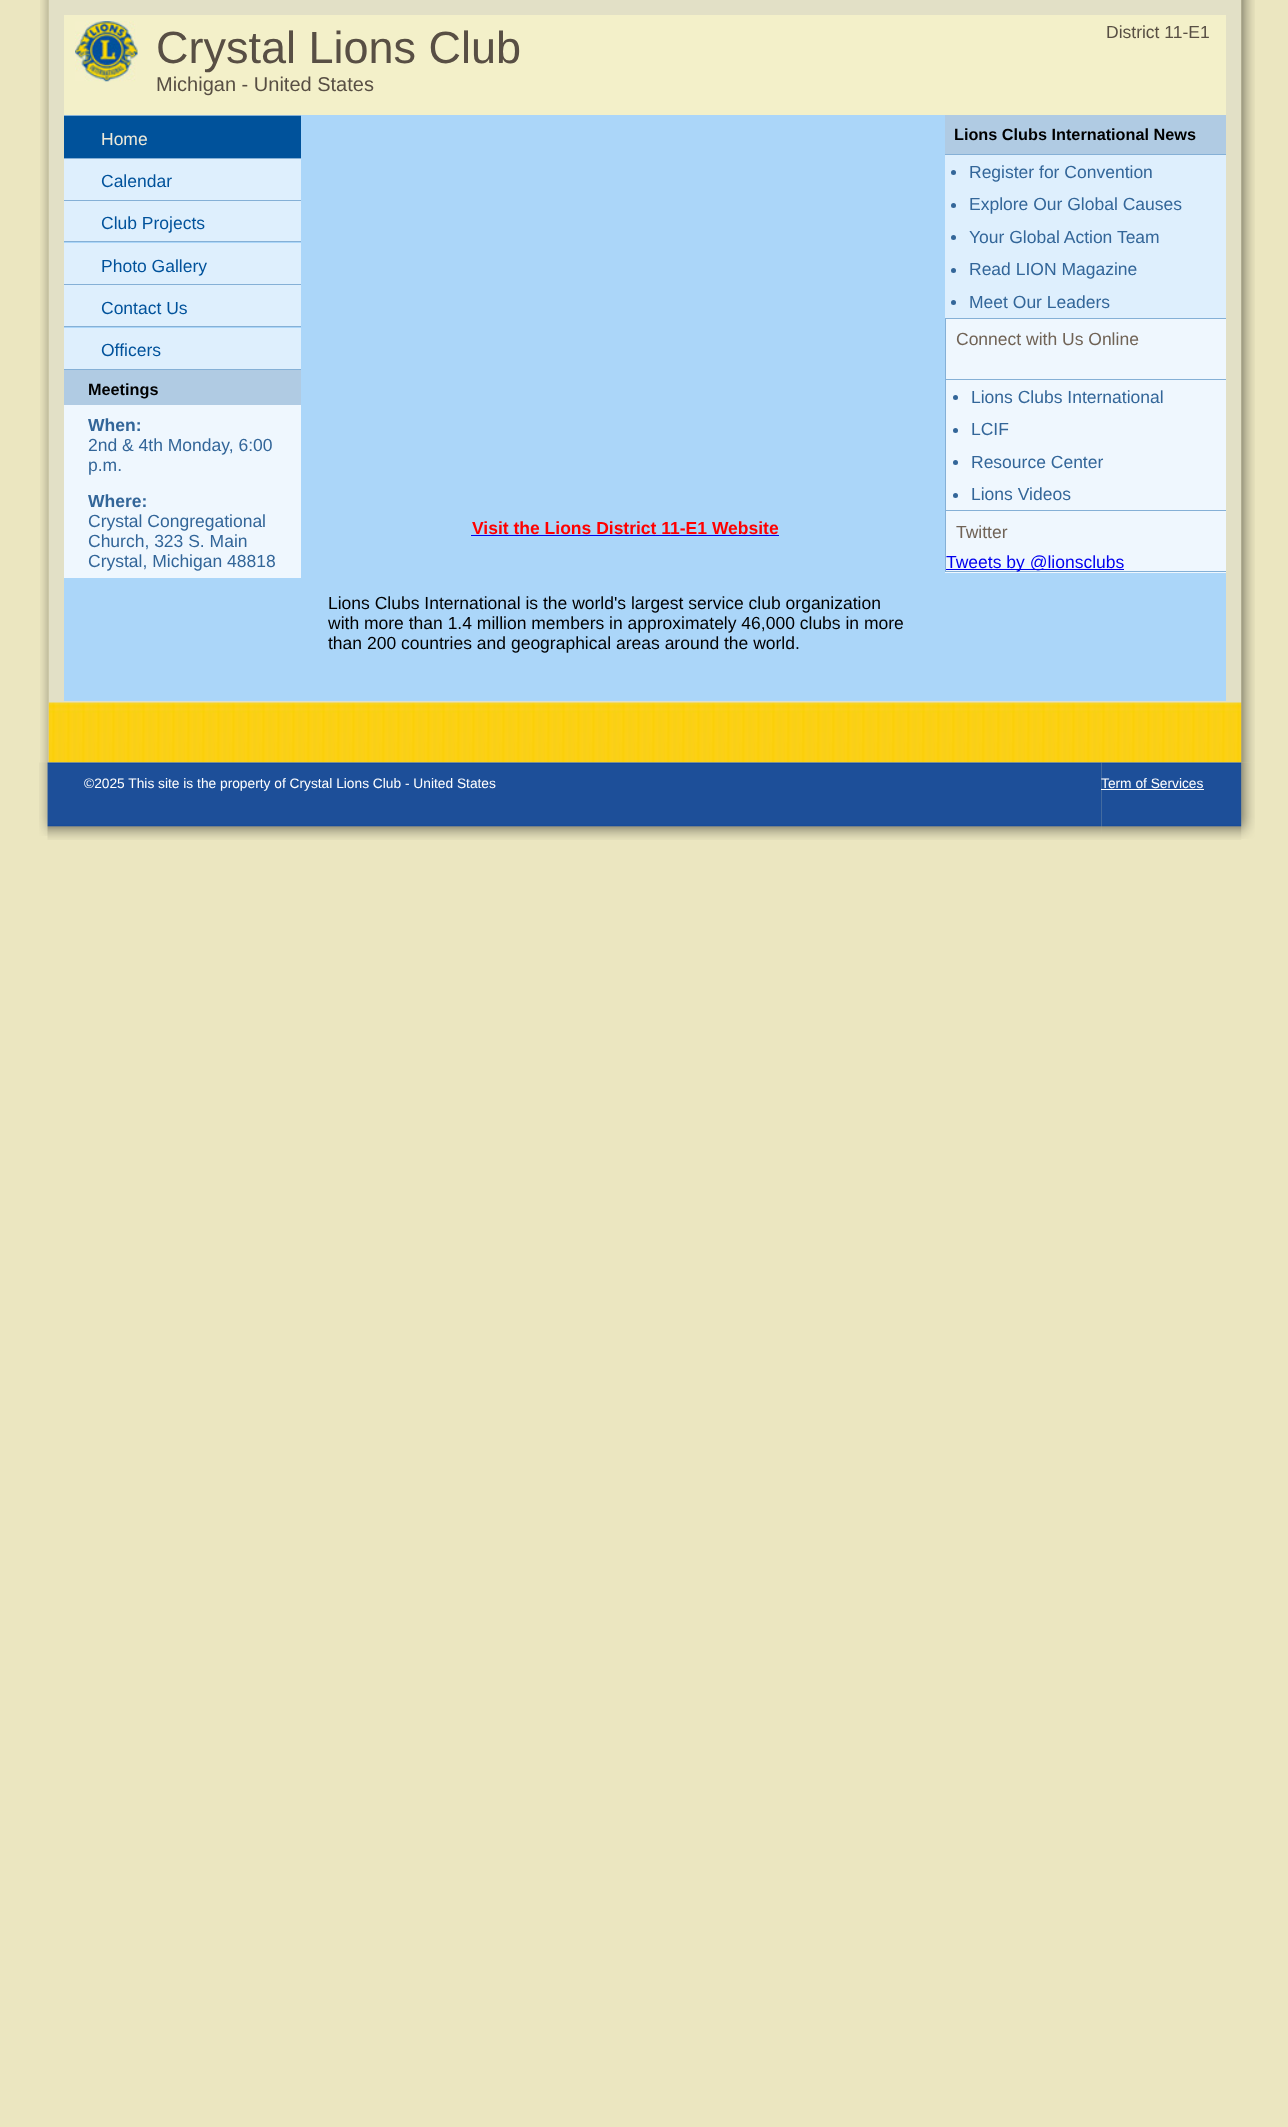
<svg xmlns="http://www.w3.org/2000/svg" xmlns:xlink="http://www.w3.org/1999/xlink" width="1288" height="2127" viewBox="0 0 1288 2127">
<style>
.cls-1{font:45px Liberation Sans;fill:#584f44}
.cls-2{font:20px Liberation Sans;fill:#584f44}
.cls-3{font:17.5px Liberation Sans;fill:#584f44}
.cls-4{font:17.5px Liberation Sans;fill:#edeada}
.cls-5{font:17.5px Liberation Sans;fill:#00529b}
.cls-6{font:bold 16.25px Liberation Sans;fill:#000000}
.cls-7{font:bold 17.5px Liberation Sans;fill:#336699}
.cls-8{font:17.5px Liberation Sans;fill:#336699}
.cls-9{font:17.5px Liberation Sans;fill:#706356}
.cls-10{font:17.5px Liberation Sans;fill:#0000ee}
.cls-11{font:bold 17.5px Liberation Sans;fill:#ff0000}
.cls-12{font:17.5px Liberation Sans;fill:#000000}
.cls-13{font:13.75px Liberation Sans;fill:#ffffff}
</style>
<rect width="100%" height="100%" fill="#ebe6c0"/>
<image xlink:href="image0.png" x="40" y="0" width="9" height="763"/>
<rect fill="#e2e0c6" x="49" y="0" width="1192" height="763"/>
<image xlink:href="image1.png" x="48" y="702" width="1194" height="61"/>
<rect fill="#f3f0c9" x="64" y="15" width="1162" height="100"/>
<image xlink:href="image2.png" x="75" y="21" width="63" height="61"/>
<rect fill="#abd6f9" x="64" y="115" width="1162" height="586"/>
<rect fill="#85b0d6" x="64" y="115" width="237" height="1"/>
<rect fill="#85b0d6" x="64" y="158" width="237" height="1"/>
<rect fill="#00529b" x="64" y="116" width="237" height="42"/>
<rect fill="#85b0d6" x="64" y="200" width="237" height="1"/>
<rect fill="#deeffd" x="64" y="159" width="237" height="41"/>
<rect fill="#85b0d6" x="64" y="241" width="237" height="1"/>
<rect fill="#deeffd" x="64" y="201" width="237" height="40"/>
<rect fill="#85b0d6" x="64" y="284" width="237" height="1"/>
<rect fill="#deeffd" x="64" y="243" width="237" height="41"/>
<rect fill="#85b0d6" x="64" y="326" width="237" height="1"/>
<rect fill="#deeffd" x="64" y="285" width="237" height="41"/>
<rect fill="#85b0d6" x="64" y="369" width="237" height="1"/>
<rect fill="#deeffd" x="64" y="328" width="237" height="41"/>
<rect fill="#eff7fe" x="64" y="405" width="237" height="173"/>
<rect fill="#b0cbe3" x="64" y="370" width="237" height="35"/>
<rect fill="#deeffd" x="945" y="155" width="281" height="163"/>
<rect fill="#b0cbe3" x="945" y="115" width="281" height="39"/>
<rect fill="#85b0d6" x="945" y="154" width="281" height="1"/>
<circle fill="#336699" cx="953.5" cy="172.5" r="2.5"/>
<circle fill="#336699" cx="953.5" cy="205.5" r="2.5"/>
<circle fill="#336699" cx="953.5" cy="237.5" r="2.5"/>
<circle fill="#336699" cx="953.5" cy="270.5" r="2.5"/>
<circle fill="#336699" cx="953.5" cy="302.5" r="2.5"/>
<rect fill="#85b0d6" x="945" y="318" width="281" height="1"/>
<rect fill="#eff7fe" x="946" y="319" width="280" height="60"/>
<rect fill="#85b0d6" x="945" y="319" width="1" height="60"/>
<rect fill="#85b0d6" x="945" y="379" width="281" height="1"/>
<rect fill="#eff7fe" x="946" y="380" width="280" height="130"/>
<rect fill="#85b0d6" x="945" y="380" width="1" height="130"/>
<circle fill="#336699" cx="955.5" cy="397.5" r="2.5"/>
<circle fill="#336699" cx="955.5" cy="430.5" r="2.5"/>
<circle fill="#336699" cx="955.5" cy="462.5" r="2.5"/>
<circle fill="#336699" cx="955.5" cy="495.5" r="2.5"/>
<rect fill="#85b0d6" x="945" y="510" width="281" height="1"/>
<rect fill="#eff7fe" x="945" y="511" width="281" height="62"/>
<rect fill="#85b0d6" x="945" y="511" width="1" height="60"/>
<rect fill="#0000ee" x="946" y="569" width="178" height="1"/>
<rect fill="#85b0d6" x="945" y="571" width="281" height="1"/>
<rect fill="#0000ee" x="471" y="535" width="308" height="1"/>
<image xlink:href="image3.png" x="1241" y="0" width="14" height="763"/>
<image xlink:href="image5.png" x="47" y="762" width="1055" height="78"/>
<image xlink:href="image4.png" x="39" y="762" width="9" height="74"/>
<image xlink:href="image6.png" x="1101" y="762" width="141" height="78"/>
<rect fill="#ffffff" x="1101" y="789" width="103" height="1"/>
<image xlink:href="image7.png" x="1241" y="762" width="14" height="77"/>
<text class="cls-1" x="156" y="63">Crystal Lions Club</text>
<text class="cls-2" x="156" y="91">Michigan - United States</text>
<text class="cls-3" x="1106" y="38">District 11-E1</text>
<text class="cls-4" x="101" y="145">Home</text>
<text class="cls-5" x="101" y="187">Calendar</text>
<text class="cls-5" x="101" y="229">Club Projects</text>
<text class="cls-5" x="101" y="272">Photo Gallery</text>
<text class="cls-5" x="101" y="314">Contact Us</text>
<text class="cls-5" x="101" y="356">Officers</text>
<text class="cls-6" x="88" y="395">Meetings</text>
<text class="cls-7" x="88" y="431">When:</text>
<text class="cls-8"><tspan x="88" y="451">2nd &amp; 4th Monday, 6:00</tspan><tspan x="88" y="471">p.m.</tspan></text>
<text class="cls-7" x="88" y="507">Where:</text>
<text class="cls-8"><tspan x="88" y="527">Crystal Congregational</tspan><tspan x="88" y="547">Church, 323 S. Main</tspan><tspan x="88" y="567">Crystal, Michigan 48818</tspan></text>
<text class="cls-6" x="954" y="140">Lions Clubs International News</text>
<text class="cls-8"><tspan x="969" y="178">Register for Convention</tspan><tspan x="969" y="210">Explore Our Global Causes</tspan><tspan x="969" y="243">Your Global Action Team</tspan><tspan x="969" y="275">Read LION Magazine</tspan><tspan x="969" y="308">Meet Our Leaders</tspan></text>
<text class="cls-9" x="956" y="345">Connect with Us Online</text>
<text class="cls-8"><tspan x="971" y="403">Lions Clubs International</tspan><tspan x="971" y="435">LCIF</tspan><tspan x="971" y="468">Resource Center</tspan><tspan x="971" y="500">Lions Videos</tspan></text>
<text class="cls-9" x="956" y="538">Twitter</text>
<text class="cls-10" x="946" y="568">Tweets by @lionsclubs</text>
<text class="cls-11" x="472" y="534">Visit the Lions District 11-E1 Website</text>
<text class="cls-12"><tspan x="328" y="609">Lions Clubs International is the world's largest service club organization</tspan><tspan x="328" y="629">with more than 1.4 million members in approximately 46,000 clubs in more</tspan><tspan x="328" y="649">than 200 countries and geographical areas around the world.</tspan></text>
<text class="cls-13" x="84" y="788">©2025 This site is the property of Crystal Lions Club - United States</text>
<text class="cls-13" x="1101" y="788">Term of Services</text>
</svg>
